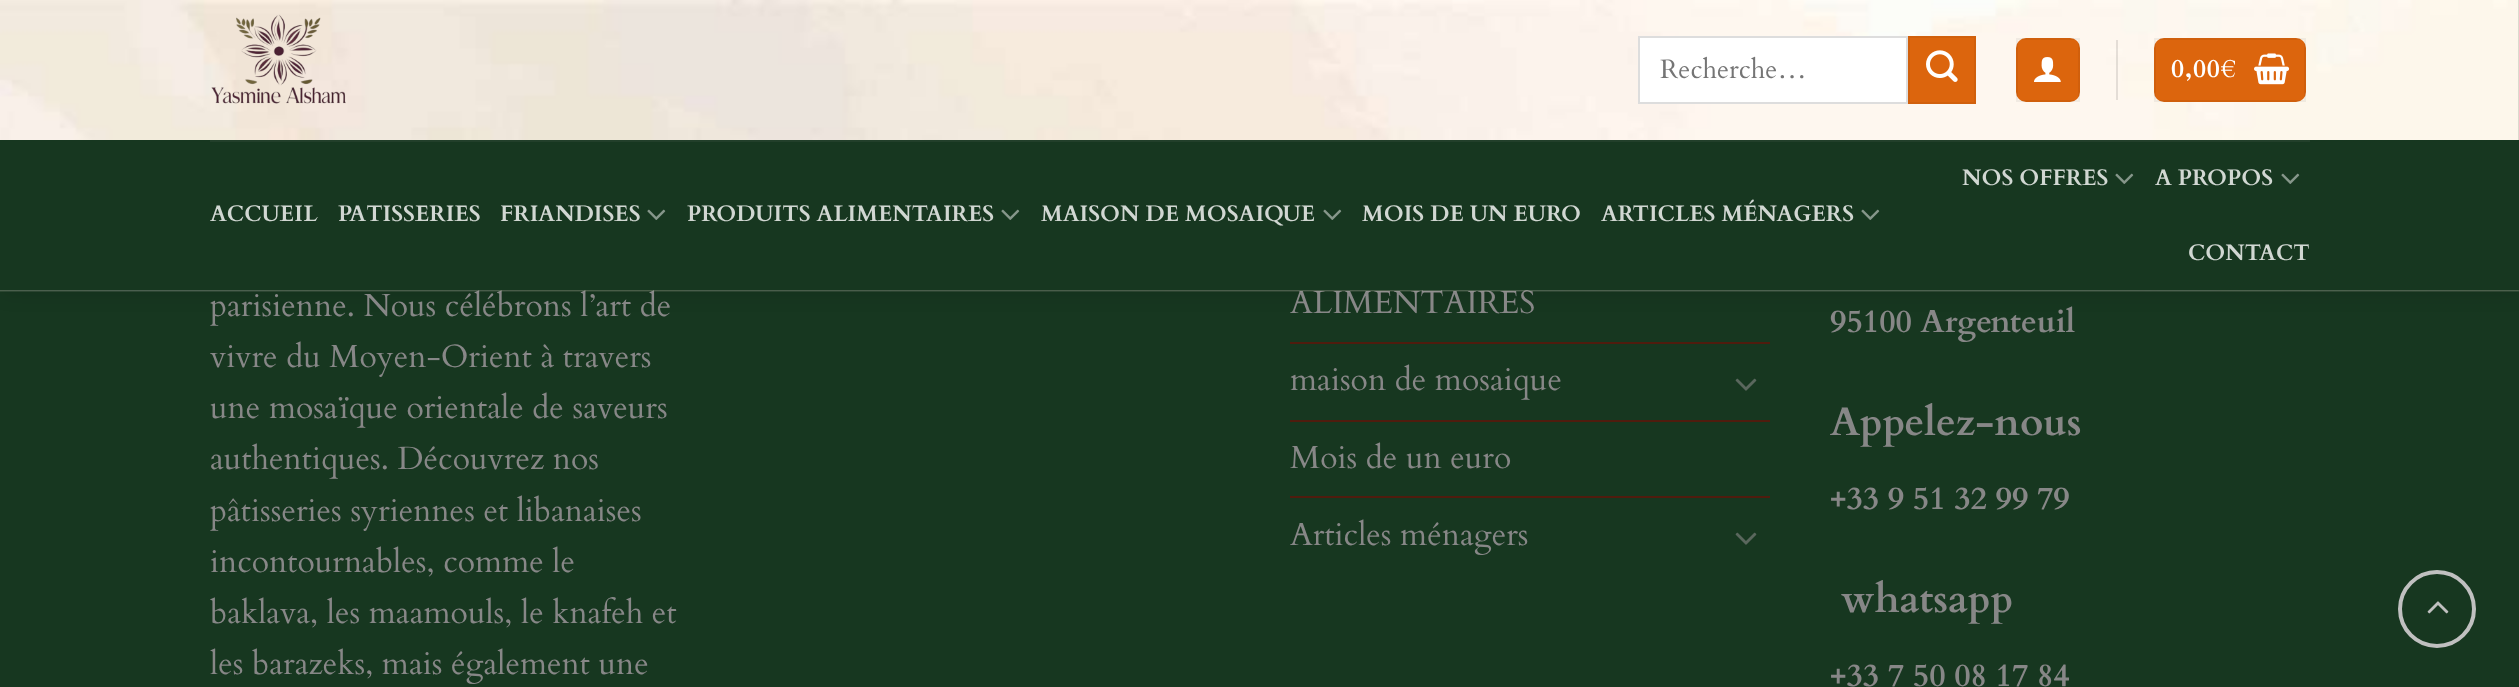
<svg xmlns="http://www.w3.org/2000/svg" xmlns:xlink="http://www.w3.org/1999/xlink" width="2519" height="687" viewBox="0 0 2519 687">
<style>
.cls-1{font:32px Cardo;fill:#878787}
.cls-2{font:bold 25.5px Cardo;letter-spacing:0.75px;fill:#ffffff}
.cls-3{font:26.5px Cardo;fill:#757575}
.cls-4{font:bold 22.4px Cardo;fill:#d1d7d2}
.cls-5{font:bold 32px Cardo;fill:#878787}
.cls-6{font:bold 40px Cardo;fill:#878787}
</style>
<rect width="100%" height="100%" fill="#173720"/>
<rect fill="#000000" fill-opacity="0.15" filter="blur(10px)" x="2" y="2" width="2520" height="290"/>
<rect fill="#501c0e" x="1290" y="342" width="480" height="2"/>
<image xlink:href="image6.png" x="1735" y="378" width="22" height="13"/>
<rect fill="#501c0e" x="1290" y="420" width="480" height="2"/>
<rect fill="#501c0e" x="1290" y="496" width="480" height="2"/>
<image xlink:href="image6.png" x="1735" y="532" width="22" height="13"/>
<circle fill="none" stroke="#c0c0c0" stroke-width="4" cx="2437" cy="609" r="37"/>
<image xlink:href="image7.png" x="2427" y="601" width="22" height="13"/>
<text class="cls-1"><tspan x="210" y="316">parisienne. Nous célébrons l’art de</tspan><tspan x="210" y="367">vivre du Moyen-Orient à travers</tspan><tspan x="210" y="418">une mosaïque orientale de saveurs</tspan><tspan x="210" y="469">authentiques. Découvrez nos</tspan><tspan x="210" y="521">pâtisseries syriennes et libanaises</tspan><tspan x="210" y="572">incontournables, comme le</tspan><tspan x="210" y="623">baklava, les maamouls, le knafeh et</tspan><tspan x="210" y="674">les barazeks, mais également une</tspan></text>
<text class="cls-1" x="1290" y="313">ALIMENTAIRES</text>
<image xlink:href="image0.png" x="0" y="0" width="2519" height="292"/>
<rect fill="#173720" x="0" y="140" width="2519" height="150"/>
<rect fill="#223f2a" x="210" y="140" width="2100" height="2"/>
<rect fill="#dc650d" x="2154" y="38" width="152" height="64" rx="10"/>
<rect fill="none" stroke="#000000" stroke-opacity="0.05" stroke-width="2" x="2155" y="39" width="150" height="62"/>
<image xlink:href="image4.png" x="2254" y="53" width="36" height="32"/>
<text class="cls-2" x="2171" y="77">0,00€</text>
<rect fill="#000000" fill-opacity="0.1" x="2116" y="40" width="2" height="60"/>
<rect fill="#dc650d" x="2016" y="38" width="64" height="64" rx="10"/>
<rect fill="none" stroke="#000000" stroke-opacity="0.05" stroke-width="2" x="2017" y="39" width="62" height="62"/>
<image xlink:href="image3.png" x="2034" y="57" width="27" height="25"/>
<rect fill="#dc650d" stroke="#d1600c" stroke-width="2" x="1909" y="37" width="66" height="66"/>
<image xlink:href="image2.png" x="1926" y="50" width="32" height="32"/>
<rect fill="#ffffff" stroke="#dddddd" stroke-width="2" x="1639" y="37" width="268" height="66"/>
<text class="cls-3" x="1660" y="78">Recherche…</text>
<image xlink:href="image1.png" x="211" y="14" width="135" height="90"/>
<text class="cls-4" x="2188" y="260">CONTACT</text>
<image xlink:href="image5.png" x="2281" y="173" width="19" height="11"/>
<text class="cls-4" x="2155" y="185">A PROPOS</text>
<image xlink:href="image5.png" x="2115" y="173" width="19" height="11"/>
<text class="cls-4" x="1962" y="185">NOS OFFRES</text>
<image xlink:href="image5.png" x="1861" y="209" width="19" height="11"/>
<text class="cls-4" x="1601" y="221">ARTICLES MÉNAGERS</text>
<text class="cls-4" x="1362" y="221">MOIS DE UN EURO</text>
<image xlink:href="image5.png" x="1323" y="209" width="19" height="11"/>
<text class="cls-4" x="1041" y="221">MAISON DE MOSAIQUE</text>
<image xlink:href="image5.png" x="1001" y="209" width="19" height="11"/>
<text class="cls-4" x="687" y="221">PRODUITS ALIMENTAIRES</text>
<image xlink:href="image5.png" x="647" y="209" width="19" height="11"/>
<text class="cls-4" x="500" y="221">FRIANDISES</text>
<text class="cls-4" x="338" y="221">PATISSERIES</text>
<text class="cls-4" x="210" y="221">ACCUEIL</text>
<text class="cls-1" x="1290" y="390">maison de mosaique</text>
<text class="cls-1" x="1290" y="468">Mois de un euro</text>
<text class="cls-1" x="1290" y="545">Articles ménagers</text>
<text class="cls-5" x="1830" y="332">95100 Argenteuil</text>
<text class="cls-6" x="1830" y="435">Appelez-nous</text>
<text class="cls-5" x="1830" y="509">+33 9 51 32 99 79</text>
<text class="cls-6" x="1841" y="612">whatsapp</text>
<text class="cls-5" x="1830" y="686">+33 7 50 08 17 84</text>
</svg>
